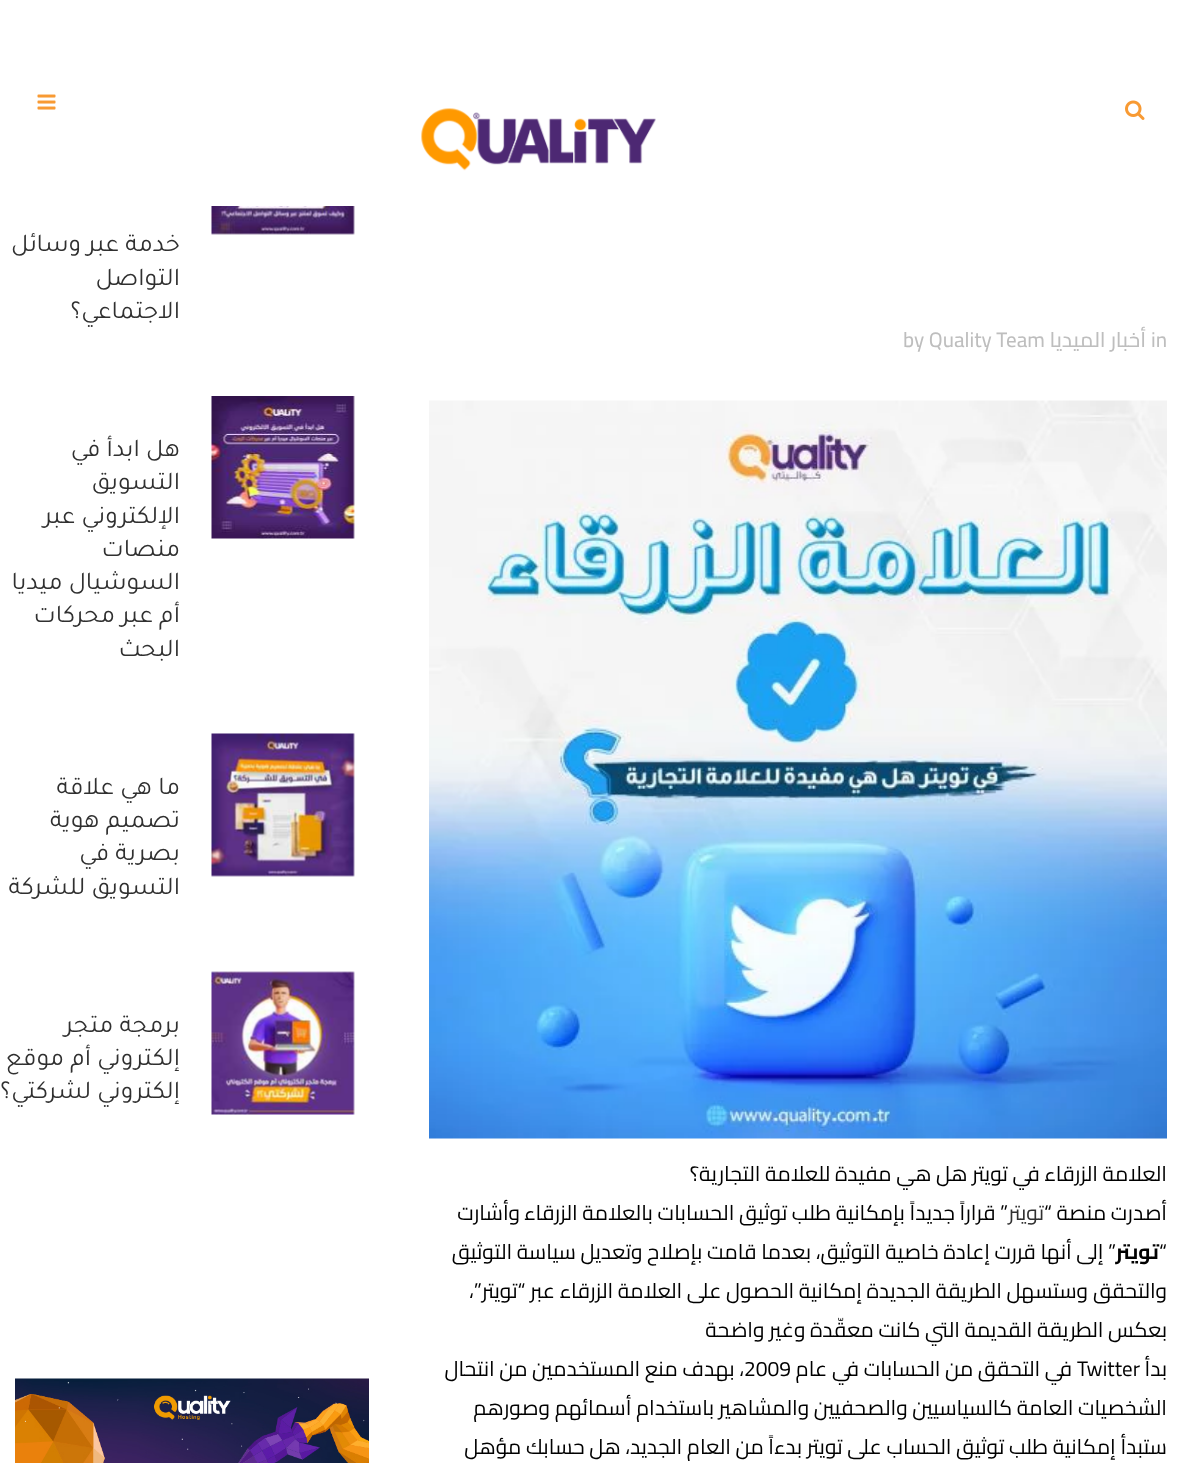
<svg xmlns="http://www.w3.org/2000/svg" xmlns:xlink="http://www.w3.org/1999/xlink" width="1182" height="1463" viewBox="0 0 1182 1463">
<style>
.cls-1{font:500 21px Cairo;fill:#bebebe}
.cls-2{font:500 21px Cairo;direction:rtl;fill:#bebebe}
.cls-3{font:21px Cairo;direction:rtl;fill:#000000}
.cls-4{font:21px Cairo;direction:rtl;fill:#303030}
.cls-5{font:21px Cairo;fill:#000000}
.cls-6{font:bold 21px Cairo;direction:rtl;fill:#000000}
.cls-7{font:25.5px Tajawal;direction:rtl;fill:#303030}
</style>
<rect width="100%" height="100%" fill="#ffffff"/>
<image xlink:href="image0.png" x="1125" y="100" width="20" height="20"/>
<image xlink:href="image1.png" x="37" y="94" width="19" height="16"/>
<image xlink:href="image2.png" x="421" y="108" width="235" height="63"/>
<image xlink:href="image3.png" x="429" y="400" width="738" height="739"/>
<image xlink:href="image4.png" x="211" y="206" width="144" height="29"/>
<image xlink:href="image5.png" x="211" y="396" width="144" height="143"/>
<image xlink:href="image6.png" x="211" y="733" width="144" height="144"/>
<image xlink:href="image7.png" x="211" y="971" width="144" height="144"/>
<image xlink:href="image8.png" x="15" y="1378" width="354" height="85"/>
<text class="cls-1" x="1151" y="347">in</text>
<text class="cls-2" x="1146" y="347">أخبار الميديا</text>
<text class="cls-1" x="903" y="347">by Quality Team</text>
<text class="cls-3"><tspan x="1167" y="1181">العلامة الزرقاء في تويتر هل هي مفيدة للعلامة التجارية؟</tspan><tspan x="1167" y="1220">أصدرت منصة “</tspan></text>
<text class="cls-4" x="1044" y="1220">تويتر</text>
<text class="cls-3" x="1008" y="1220">” قراراً جديداً بإمكانية طلب توثيق الحسابات بالعلامة الزرقاء</text>
<text class="cls-3" x="520" y="1220">وأشارت</text>
<text class="cls-5" x="1159" y="1259">“</text>
<text class="cls-6" x="1159" y="1259">تويتر</text>
<text class="cls-3" x="1116" y="1259">” إلى أنها قررت إعادة خاصية التوثيق، بعدما قامت بإصلاح وتعديل سياسة التوثيق</text>
<text class="cls-3" x="1167" y="1298">والتحقق</text>
<text class="cls-3" x="1088" y="1298">وستسهل الطريقة الجديدة إمكانية الحصول على العلامة الزرقاء عبر “تويتر”،</text>
<text class="cls-3"><tspan x="1167" y="1337">بعكس الطريقة القديمة التي كانت معقّدة وغير واضحة</tspan><tspan x="1167" y="1376">بدأ</tspan></text>
<text class="cls-5" x="1077" y="1376">Twitter</text>
<text class="cls-3" x="1072" y="1376">في التحقق من الحسابات في عام</text>
<text class="cls-5" x="744" y="1376">2009</text>
<text class="cls-3" x="744" y="1376">، بهدف منع المستخدمين من انتحال</text>
<text class="cls-3"><tspan x="1167" y="1415">الشخصيات العامة كالسياسيين والصحفيين والمشاهير باستخدام أسمائهم وصورهم</tspan><tspan x="1167" y="1454">ستبدأ إمكانية طلب توثيق الحساب على تويتر بدءاً من العام الجديد، هل حسابك مؤهل</tspan></text>
<text class="cls-7"><tspan x="180" y="251">خدمة عبر وسائل</tspan><tspan x="180" y="285">التواصل</tspan><tspan x="180" y="318">الاجتماعي؟</tspan></text>
<text class="cls-7"><tspan x="180" y="456">هل ابدأ في</tspan><tspan x="180" y="489">التسويق</tspan><tspan x="180" y="523">الإلكتروني عبر</tspan><tspan x="180" y="556">منصات</tspan><tspan x="180" y="589">السوشيال ميديا</tspan><tspan x="180" y="622">أم عبر محركات</tspan><tspan x="180" y="656">البحث</tspan></text>
<text class="cls-7"><tspan x="180" y="794">ما هي علاقة</tspan><tspan x="180" y="827">تصميم هوية</tspan><tspan x="180" y="860">بصرية في</tspan><tspan x="180" y="894">التسويق للشركة</tspan></text>
<text class="cls-7"><tspan x="180" y="1032">برمجة متجر</tspan><tspan x="180" y="1065">إلكتروني أم موقع</tspan><tspan x="180" y="1098">إلكتروني لشركتي؟</tspan></text>
</svg>
